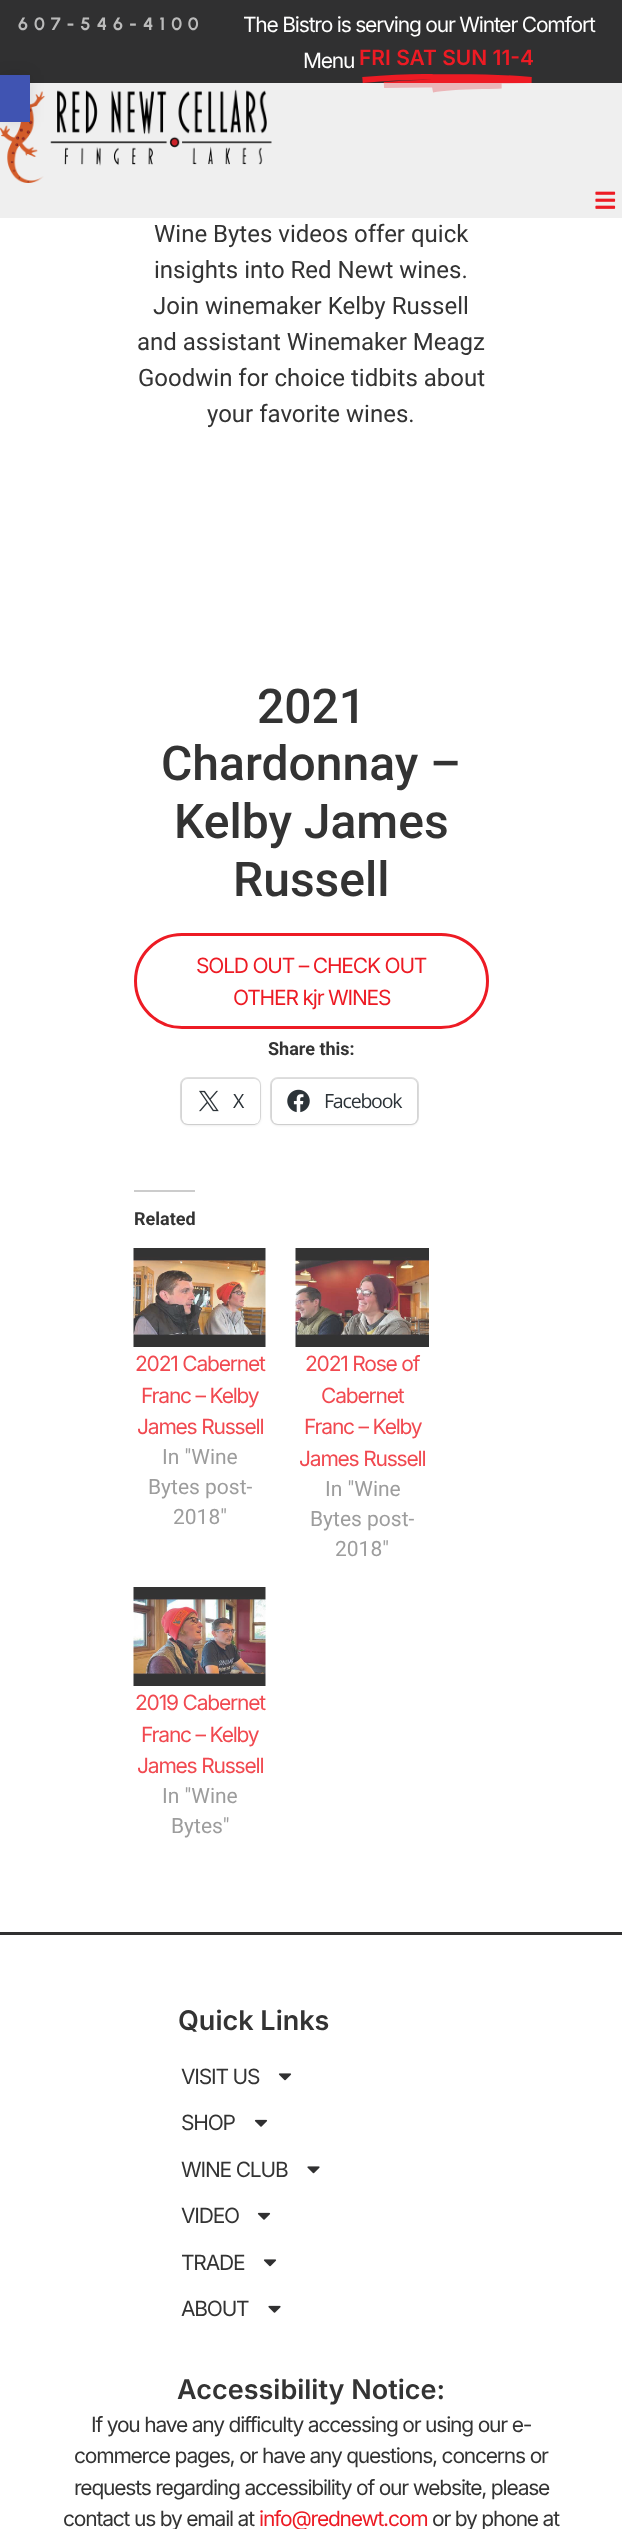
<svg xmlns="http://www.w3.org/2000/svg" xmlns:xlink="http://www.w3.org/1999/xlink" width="622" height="2529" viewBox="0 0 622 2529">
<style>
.cls-1{font:bold 18px Urbanist;letter-spacing:6px;fill:#bbbbbb}
.cls-2{font:21px Inter;letter-spacing:-1.2px;fill:#ffffff}
.cls-3{font:600 21px Inter;fill:#ed1b24}
.cls-4{font:24px Roboto;fill:#333333}
.cls-5{font:500 48px Roboto;fill:#333333}
.cls-6{font:21px Inter;letter-spacing:-1.2px;fill:#ed1b24}
.cls-7{font:bold 18px Roboto;fill:#333333}
.cls-8{font:19.5px Open Sans;letter-spacing:-1.2px;fill:#2c3338}
.cls-9{font:21px Inter;letter-spacing:-1.2px;fill:#f14950}
.cls-10{font:21px Roboto;fill:#9d9d9d}
.cls-11{font:600 27px Inter;fill:#333333}
.cls-12{font:21px Inter;letter-spacing:-1.2px;fill:#333333}
</style>
<rect width="100%" height="100%" fill="#ffffff"/>
<rect fill="#303031" x="0" y="0" width="622" height="83"/>
<path fill="none" stroke="#ed1b24" stroke-width="5.9" d="M362.5 80C380 78.5 415.5 76.5 432.5 77C475.5 77 499 77 531.5 80C492.5 81 423 81.5 384 85C413 84 473 84.5 501.5 85.5C482 86.5 453.5 85.5 432.5 89.5"/>
<rect fill="#e9e9e9" fill-opacity="0.75" x="0" y="83" width="622" height="135"/>
<image xlink:href="image0.png" x="0" y="89" width="272" height="94"/>
<image xlink:href="image1.png" x="595" y="191" width="21" height="18"/>
<rect fill="#000000" fill-opacity="0.1" filter="blur(7.5px)" x="0" y="75" width="30" height="47"/>
<rect fill="#4054b2" x="0" y="75" width="30" height="47"/>
<rect fill="none" stroke="#ed1b24" stroke-width="3" x="135.5" y="934.5" width="352" height="93" rx="46.5"/>
<rect fill="none" stroke="#e0e0e0" stroke-width="2" x="181" y="1078" width="79" height="46" rx="7"/>
<rect fill="#000000" fill-opacity="0.12" filter="blur(1.5px)" x="182" y="1080" width="78" height="45" rx="6"/>
<rect fill="#ffffff" x="182" y="1079" width="78" height="45" rx="6"/>
<image xlink:href="image2.png" x="199" y="1090" width="20" height="22"/>
<rect fill="none" stroke="#e0e0e0" stroke-width="2" x="271" y="1078" width="147" height="46" rx="7"/>
<rect fill="#000000" fill-opacity="0.12" filter="blur(1.5px)" x="272" y="1080" width="145" height="45" rx="6"/>
<rect fill="#ffffff" x="272" y="1079" width="145" height="45" rx="6"/>
<image xlink:href="image3.png" x="287" y="1089" width="23" height="24"/>
<rect fill="#cccccc" x="134" y="1190" width="61" height="2"/>
<image xlink:href="image4.png" x="133" y="1248" width="133" height="99"/>
<image xlink:href="image5.png" x="295" y="1248" width="134" height="99"/>
<image xlink:href="image6.png" x="133" y="1587" width="133" height="99"/>
<rect fill="#303031" x="0" y="1932" width="622" height="3"/>
<image xlink:href="image7.png" x="278" y="2073" width="14" height="8"/>
<image xlink:href="image8.png" x="254" y="2119" width="14" height="8"/>
<image xlink:href="image9.png" x="307" y="2166" width="13" height="8"/>
<image xlink:href="image8.png" x="257" y="2212" width="14" height="8"/>
<image xlink:href="image7.png" x="263" y="2259" width="14" height="8"/>
<image xlink:href="image10.png" x="268" y="2305" width="13" height="8"/>
<text class="cls-1" x="18" y="30">607-546-4100</text>
<text class="cls-2" x="243" y="32">The Bistro is serving our Winter Comfort</text>
<text class="cls-2" x="303" y="68">Menu</text>
<text class="cls-3" x="359" y="65">FRI SAT SUN 11-4</text>
<text class="cls-4"><tspan x="154" y="242">Wine Bytes videos offer quick</tspan><tspan x="154" y="278">insights into Red Newt wines.</tspan></text>
<text class="cls-4" x="153" y="314">Join winemaker Kelby Russell</text>
<text class="cls-4" x="137" y="350">and assistant Winemaker Meagz</text>
<text class="cls-4" x="138" y="386">Goodwin for choice tidbits about</text>
<text class="cls-4" x="207" y="422">your favorite wines.</text>
<text class="cls-5" x="257" y="723">2021</text>
<text class="cls-5" x="161" y="780">Chardonnay –</text>
<text class="cls-5" x="174" y="838">Kelby James</text>
<text class="cls-5" x="233" y="896">Russell</text>
<text class="cls-6" x="196" y="973">SOLD OUT – CHECK OUT</text>
<text class="cls-6" x="233" y="1005">OTHER kjr WINES</text>
<text class="cls-7" x="268" y="1055">Share this:</text>
<text class="cls-8" x="233" y="1108">X</text>
<text class="cls-8" x="324" y="1108">Facebook</text>
<text class="cls-7" x="134" y="1225">Related</text>
<text class="cls-9" x="135" y="1371">2021 Cabernet</text>
<text class="cls-9" x="141" y="1403">Franc – Kelby</text>
<text class="cls-9" x="137" y="1434">James Russell</text>
<text class="cls-10" x="162" y="1464">In "Wine</text>
<text class="cls-10" x="148" y="1494">Bytes post-</text>
<text class="cls-10" x="173" y="1524">2018"</text>
<text class="cls-9" x="305" y="1371">2021 Rose of</text>
<text class="cls-9" x="321" y="1403">Cabernet</text>
<text class="cls-9" x="304" y="1434">Franc – Kelby</text>
<text class="cls-9" x="299" y="1466">James Russell</text>
<text class="cls-10" x="325" y="1496">In "Wine</text>
<text class="cls-10" x="310" y="1526">Bytes post-</text>
<text class="cls-10" x="335" y="1556">2018"</text>
<text class="cls-9" x="135" y="1710">2019 Cabernet</text>
<text class="cls-9" x="141" y="1742">Franc – Kelby</text>
<text class="cls-9" x="137" y="1773">James Russell</text>
<text class="cls-10" x="162" y="1803">In "Wine</text>
<text class="cls-10" x="171" y="1833">Bytes"</text>
<text class="cls-11" x="178" y="2030">Quick Links</text>
<text class="cls-12" x="181" y="2084">VISIT US</text>
<text class="cls-12" x="181" y="2130">SHOP</text>
<text class="cls-12" x="181" y="2177">WINE CLUB</text>
<text class="cls-12" x="181" y="2223">VIDEO</text>
<text class="cls-12" x="181" y="2270">TRADE</text>
<text class="cls-12" x="181" y="2316">ABOUT</text>
<text class="cls-11" x="177" y="2399">Accessibility Notice:</text>
<text class="cls-12" x="91" y="2432">If you have any difficulty accessing or using our e-</text>
<text class="cls-12"><tspan x="74" y="2463">commerce pages, or have any questions, concerns or</tspan><tspan x="74" y="2495">requests regarding accessibility of our website, please</tspan></text>
<text class="cls-12" x="63" y="2526">contact us by email at</text>
<text class="cls-6" x="259" y="2526">info@rednewt.com</text>
<text class="cls-12" x="432" y="2526">or by phone at</text>
</svg>
